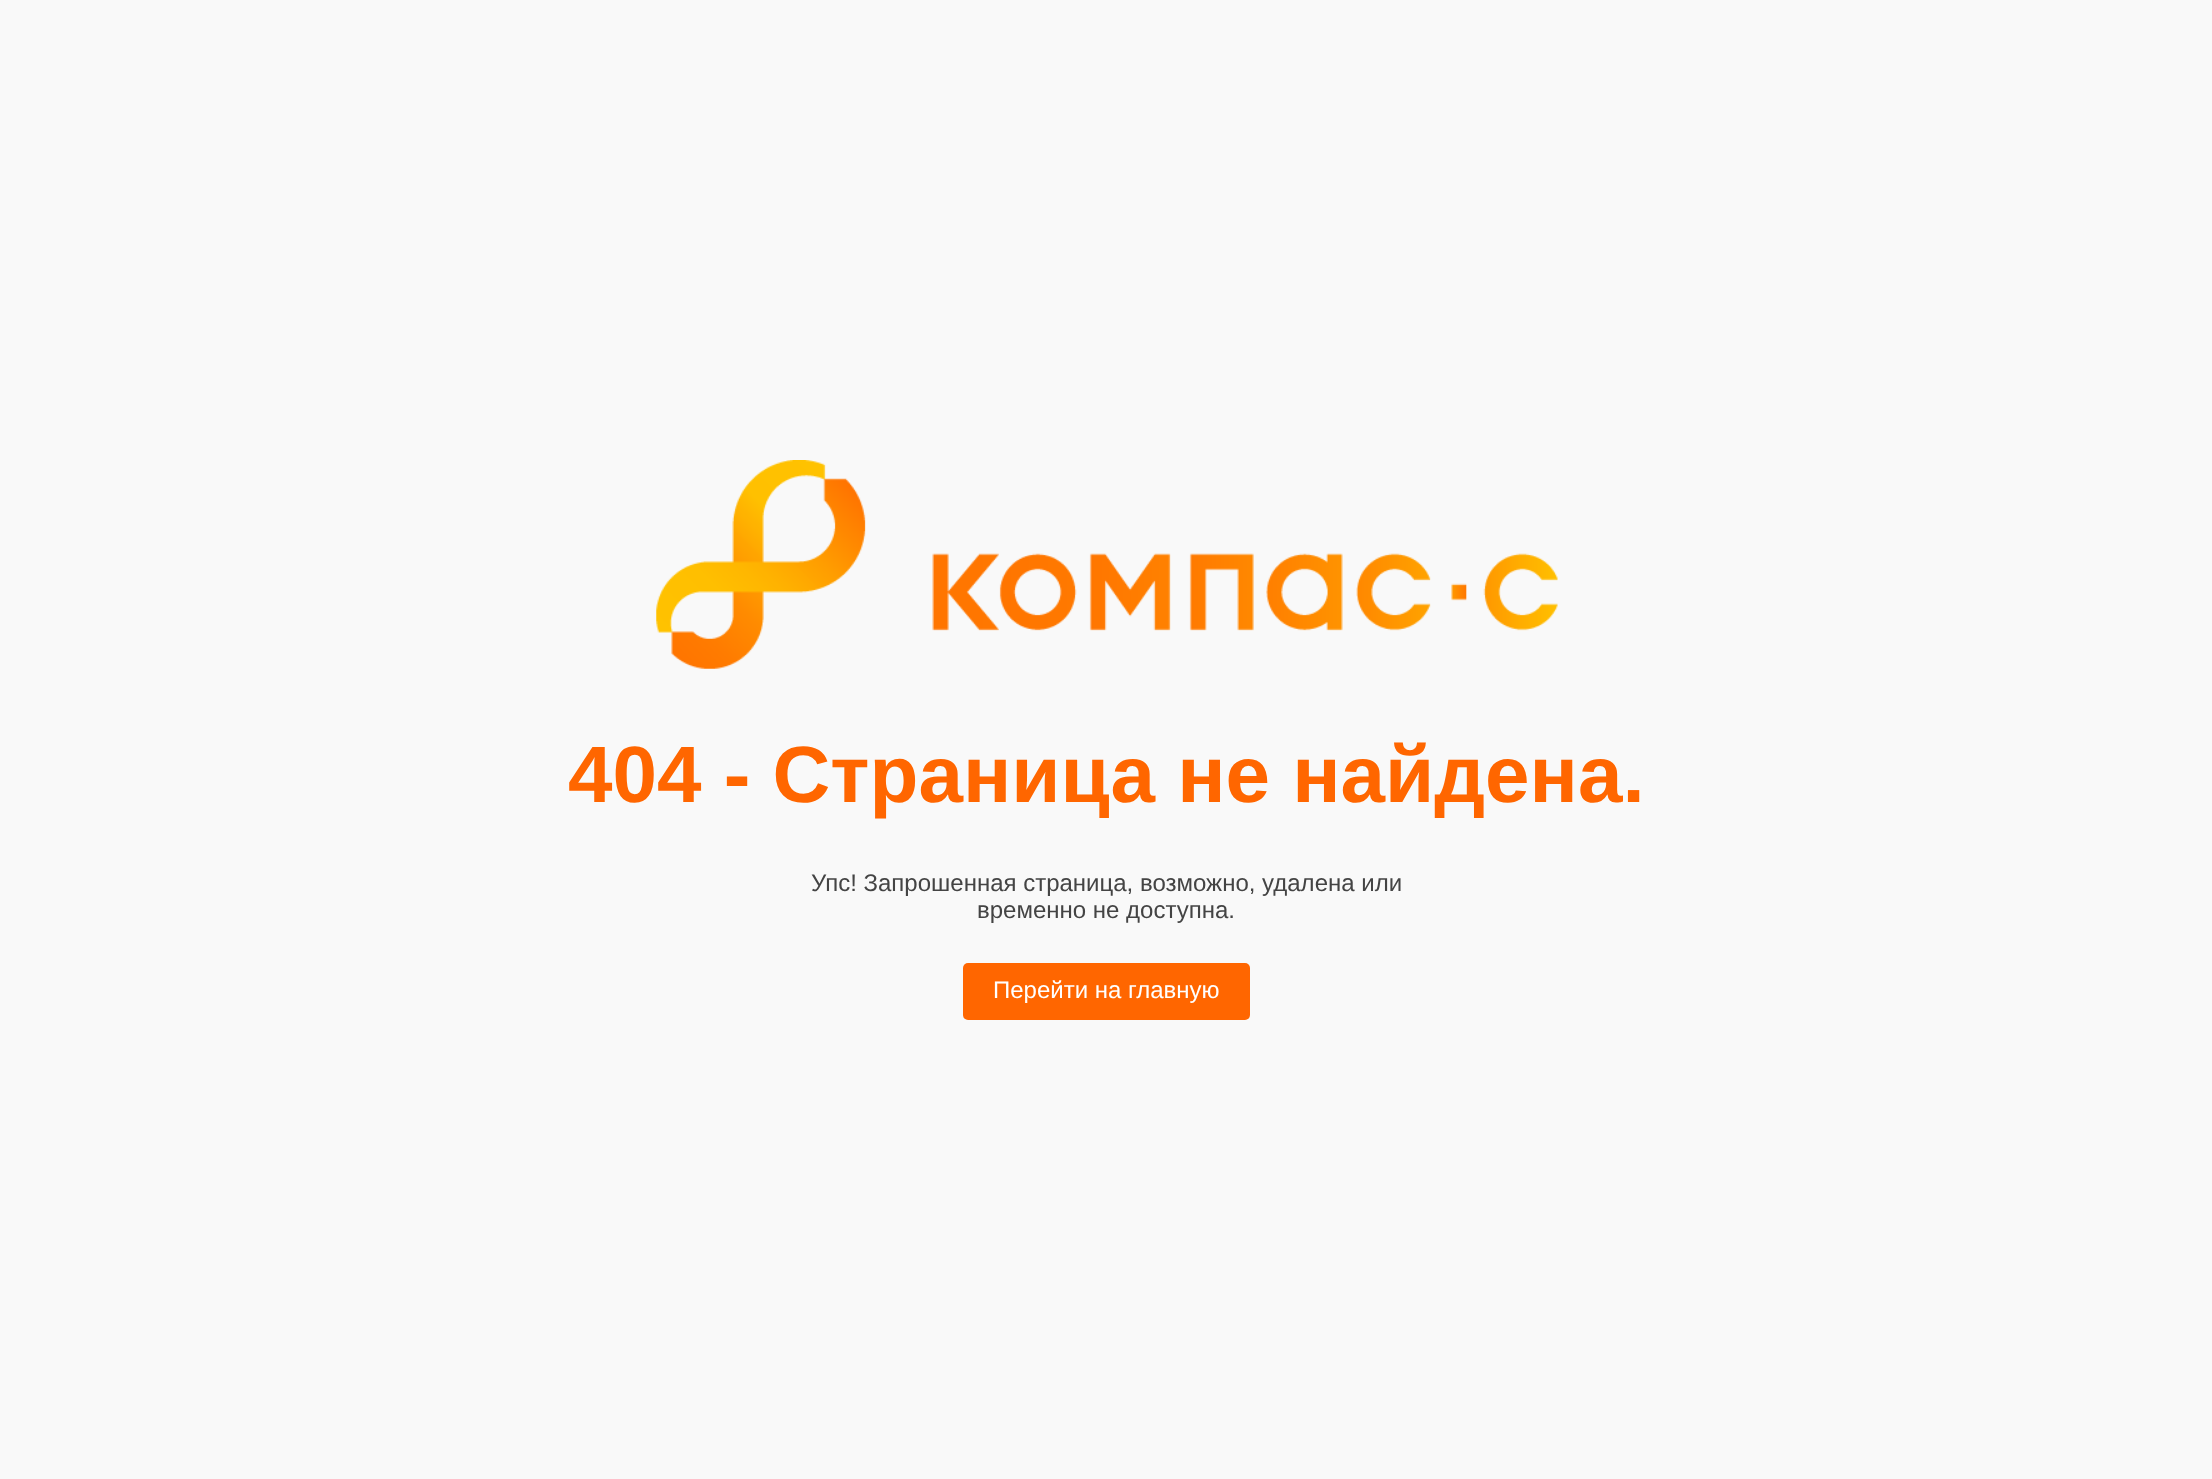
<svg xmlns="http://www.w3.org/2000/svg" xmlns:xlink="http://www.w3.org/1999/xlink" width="2212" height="1479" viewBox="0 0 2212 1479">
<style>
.cls-1{font:bold 80px Liberation Sans;fill:#ff6600}
.cls-2{font:24px Liberation Sans;fill:#444444}
.cls-3{font:24px Liberation Sans;fill:#ffffff}
</style>
<rect width="100%" height="100%" fill="#f9f9f9"/>
<image xlink:href="image0.png" x="656" y="460" width="902" height="209"/>
<rect fill="#ff6600" x="963" y="963" width="287" height="57" rx="5"/>
<text class="cls-1" x="568" y="802">404 - Страница не найдена.</text>
<text class="cls-2" x="811" y="891">Упс! Запрошенная страница, возможно, удалена или</text>
<text class="cls-2" x="977" y="918">временно не доступна.</text>
<text class="cls-3" x="993" y="998">Перейти на главную</text>
</svg>
